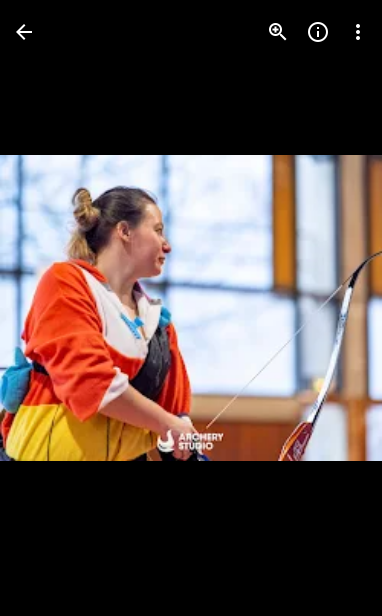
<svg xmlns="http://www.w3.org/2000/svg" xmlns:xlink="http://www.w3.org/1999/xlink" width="382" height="616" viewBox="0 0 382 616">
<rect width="100%" height="100%" fill="#000000"/>
<image xlink:href="image0.png" x="16" y="24" width="16" height="16"/>
<image xlink:href="image1.png" x="269" y="23" width="18" height="18"/>
<image xlink:href="image2.png" x="308" y="22" width="20" height="20"/>
<image xlink:href="image3.png" x="356" y="24" width="4" height="16"/>
<image xlink:href="image4.png" x="0" y="155" width="382" height="306"/>
</svg>
